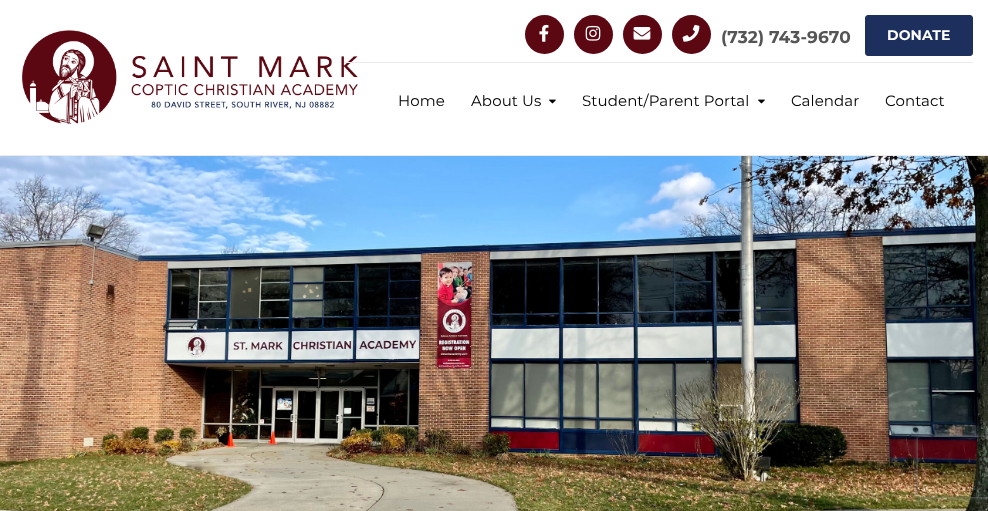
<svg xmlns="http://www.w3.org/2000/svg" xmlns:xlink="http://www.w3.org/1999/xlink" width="988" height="511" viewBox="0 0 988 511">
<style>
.cls-1{font:bold 17px Montserrat;letter-spacing:0.1px;fill:#555555}
.cls-2{font:bold 14px Montserrat;letter-spacing:0.1px;fill:#ffffff}
.cls-3{font:15px Montserrat;letter-spacing:0.1px;fill:#000000}
</style>
<defs>
<clipPath id="clip1"><path d="M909 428H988V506H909ZM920 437H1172C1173 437 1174 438 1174 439V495C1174 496 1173 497 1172 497H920C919 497 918 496 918 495V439C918 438 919 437 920 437Z" clip-rule="evenodd"/></clipPath>
</defs>
<rect width="100%" height="100%" fill="#ffffff"/>
<rect fill="#ebebeb" x="0" y="155" width="988" height="1"/>
<image xlink:href="image0.png" x="22" y="30" width="336" height="95"/>
<circle fill="#5c0813" cx="544.5" cy="34.5" r="19.5"/>
<image xlink:href="image1.png" x="539" y="24" width="10" height="18"/>
<circle fill="#5c0813" cx="593.5" cy="34.5" r="19.5"/>
<image xlink:href="image2.png" x="585" y="25" width="16" height="16"/>
<circle fill="#5c0813" cx="642.5" cy="34.5" r="19.5"/>
<image xlink:href="image3.png" x="633" y="27" width="18" height="13"/>
<circle fill="#5c0813" cx="691.5" cy="34.5" r="19.5"/>
<image xlink:href="image4.png" x="682" y="24" width="18" height="18"/>
<rect fill="#1c2f5d" stroke="#1c2f5d" x="865.5" y="15.5" width="107" height="40" rx="2.5"/>
<rect fill="#ebebeb" x="344" y="62" width="629" height="1"/>
<image xlink:href="image5.png" x="549" y="99" width="7" height="5"/>
<image xlink:href="image5.png" x="758" y="99" width="7" height="5"/>
<image xlink:href="image6.png" x="0" y="156" width="988" height="355"/>
<g clip-path="url(#clip1)">
<rect fill="#808080" filter="blur(2.5px)" x="918" y="437" width="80" height="60" rx="2"/>
</g>
<text class="cls-1" x="721" y="43">(732) 743-9670</text>
<text class="cls-2" x="887" y="40">DONATE</text>
<text class="cls-3" x="398" y="106">Home</text>
<text class="cls-3" x="471" y="106">About Us</text>
<text class="cls-3" x="582" y="106">Student/Parent Portal</text>
<text class="cls-3" x="791" y="106">Calendar</text>
<text class="cls-3" x="885" y="106">Contact</text>
</svg>
